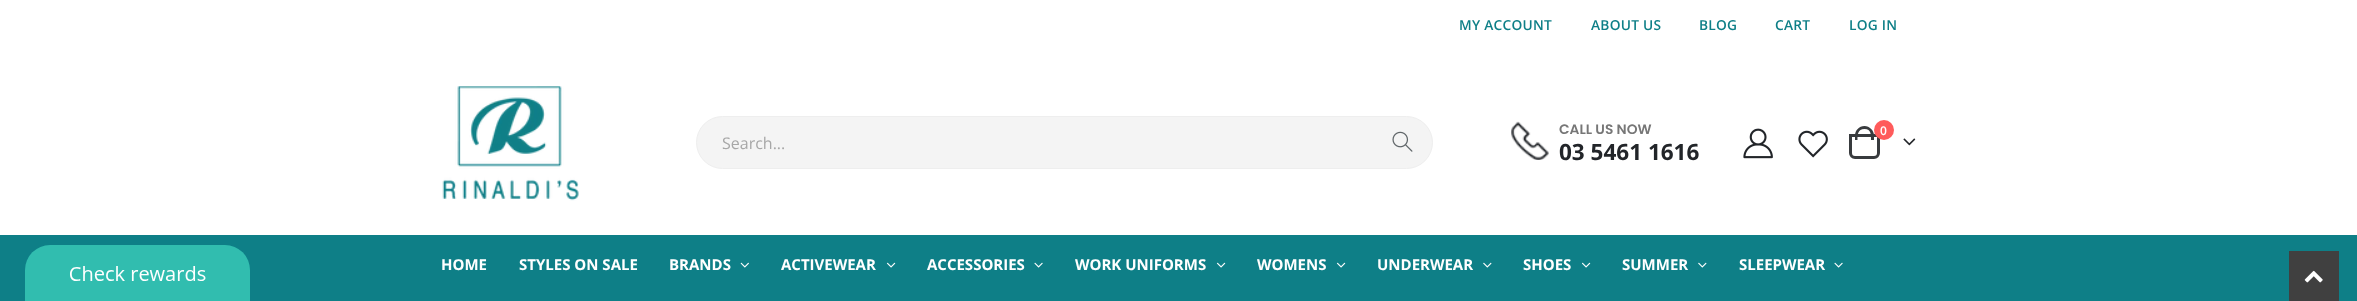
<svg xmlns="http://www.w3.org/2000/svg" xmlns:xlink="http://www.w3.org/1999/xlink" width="2357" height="301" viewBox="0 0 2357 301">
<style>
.cls-1{font:600 13.75px Open Sans;letter-spacing:0.25px;fill:#0e7f87}
.cls-2{font:16px Open Sans;fill:#a7a7a7}
.cls-3{font:600 13.75px Poppins;fill:#777777}
.cls-4{font:bold 22.5px Open Sans;fill:#222529}
.cls-5{font:600 12px Open Sans;fill:#ffffff}
.cls-6{font:bold 15px Open Sans;fill:#ffffff}
</style>
<rect width="100%" height="100%" fill="#ffffff"/>
<rect fill="#0e7f87" x="0" y="235" width="2357" height="66"/>
<image xlink:href="image0.png" x="25" y="245" width="225" height="56"/>
<image xlink:href="image1.png" x="442" y="86" width="137" height="115"/>
<rect fill="#f4f4f4" stroke="#eeeeee" x="696.5" y="116.5" width="736" height="52" rx="26"/>
<image xlink:href="image2.png" x="1392" y="131" width="21" height="21"/>
<image xlink:href="image3.png" x="1511" y="121" width="38" height="39"/>
<image xlink:href="image4.png" x="1743" y="128" width="30" height="31"/>
<image xlink:href="image5.png" x="1798" y="130" width="30" height="28"/>
<path fill="none" stroke="#383b3e" stroke-width="3" d="M1850.5 135.5H1878.5V153C1878.5 155.5 1876.5 157.5 1874 157.5H1855C1852.5 157.5 1850.5 155.5 1850.5 153Z"/>
<path fill="#383b3e" fill-rule="evenodd" d="M1864.5 126C1869.5 126 1874 130.5 1874 135.5V140H1855V135.5C1855 130.5 1859 126 1864.5 126ZM1864.5 129C1871.5 129 1871 135 1871 140H1857.5C1857.5 135 1857.5 129 1864.5 129Z"/>
<circle fill="#ff5b5b" cx="1884" cy="130" r="10"/>
<image xlink:href="image6.png" x="1903" y="138" width="13" height="8"/>
<image xlink:href="image7.png" x="740" y="262" width="9" height="6"/>
<image xlink:href="image8.png" x="886" y="262" width="10" height="6"/>
<image xlink:href="image9.png" x="1034" y="262" width="9" height="6"/>
<image xlink:href="image8.png" x="1216" y="262" width="10" height="6"/>
<image xlink:href="image8.png" x="1336" y="262" width="10" height="6"/>
<image xlink:href="image10.png" x="1483" y="262" width="9" height="6"/>
<image xlink:href="image8.png" x="1581" y="262" width="10" height="6"/>
<image xlink:href="image10.png" x="1698" y="262" width="9" height="6"/>
<image xlink:href="image9.png" x="1834" y="262" width="9" height="6"/>
<rect fill="#404040" x="2289" y="251" width="50" height="50"/>
<image xlink:href="image11.png" x="2304" y="270" width="19" height="13"/>
<text class="cls-1" x="1459" y="30">MY ACCOUNT</text>
<text class="cls-1" x="1591" y="30">ABOUT US</text>
<text class="cls-1" x="1699" y="30">BLOG</text>
<text class="cls-1" x="1775" y="30">CART</text>
<text class="cls-1" x="1849" y="30">LOG IN</text>
<text class="cls-2" x="722" y="149">Search...</text>
<text class="cls-3" x="1559" y="134">CALL US NOW</text>
<text class="cls-4" x="1559" y="160">03 5461 1616</text>
<text class="cls-5" x="1880" y="135">0</text>
<text class="cls-6" x="441" y="270">HOME</text>
<text class="cls-6" x="519" y="270">STYLES ON SALE</text>
<text class="cls-6" x="669" y="270">BRANDS</text>
<text class="cls-6" x="781" y="270">ACTIVEWEAR</text>
<text class="cls-6" x="927" y="270">ACCESSORIES</text>
<text class="cls-6" x="1075" y="270">WORK UNIFORMS</text>
<text class="cls-6" x="1257" y="270">WOMENS</text>
<text class="cls-6" x="1377" y="270">UNDERWEAR</text>
<text class="cls-6" x="1523" y="270">SHOES</text>
<text class="cls-6" x="1622" y="270">SUMMER</text>
<text class="cls-6" x="1739" y="270">SLEEPWEAR</text>
</svg>
